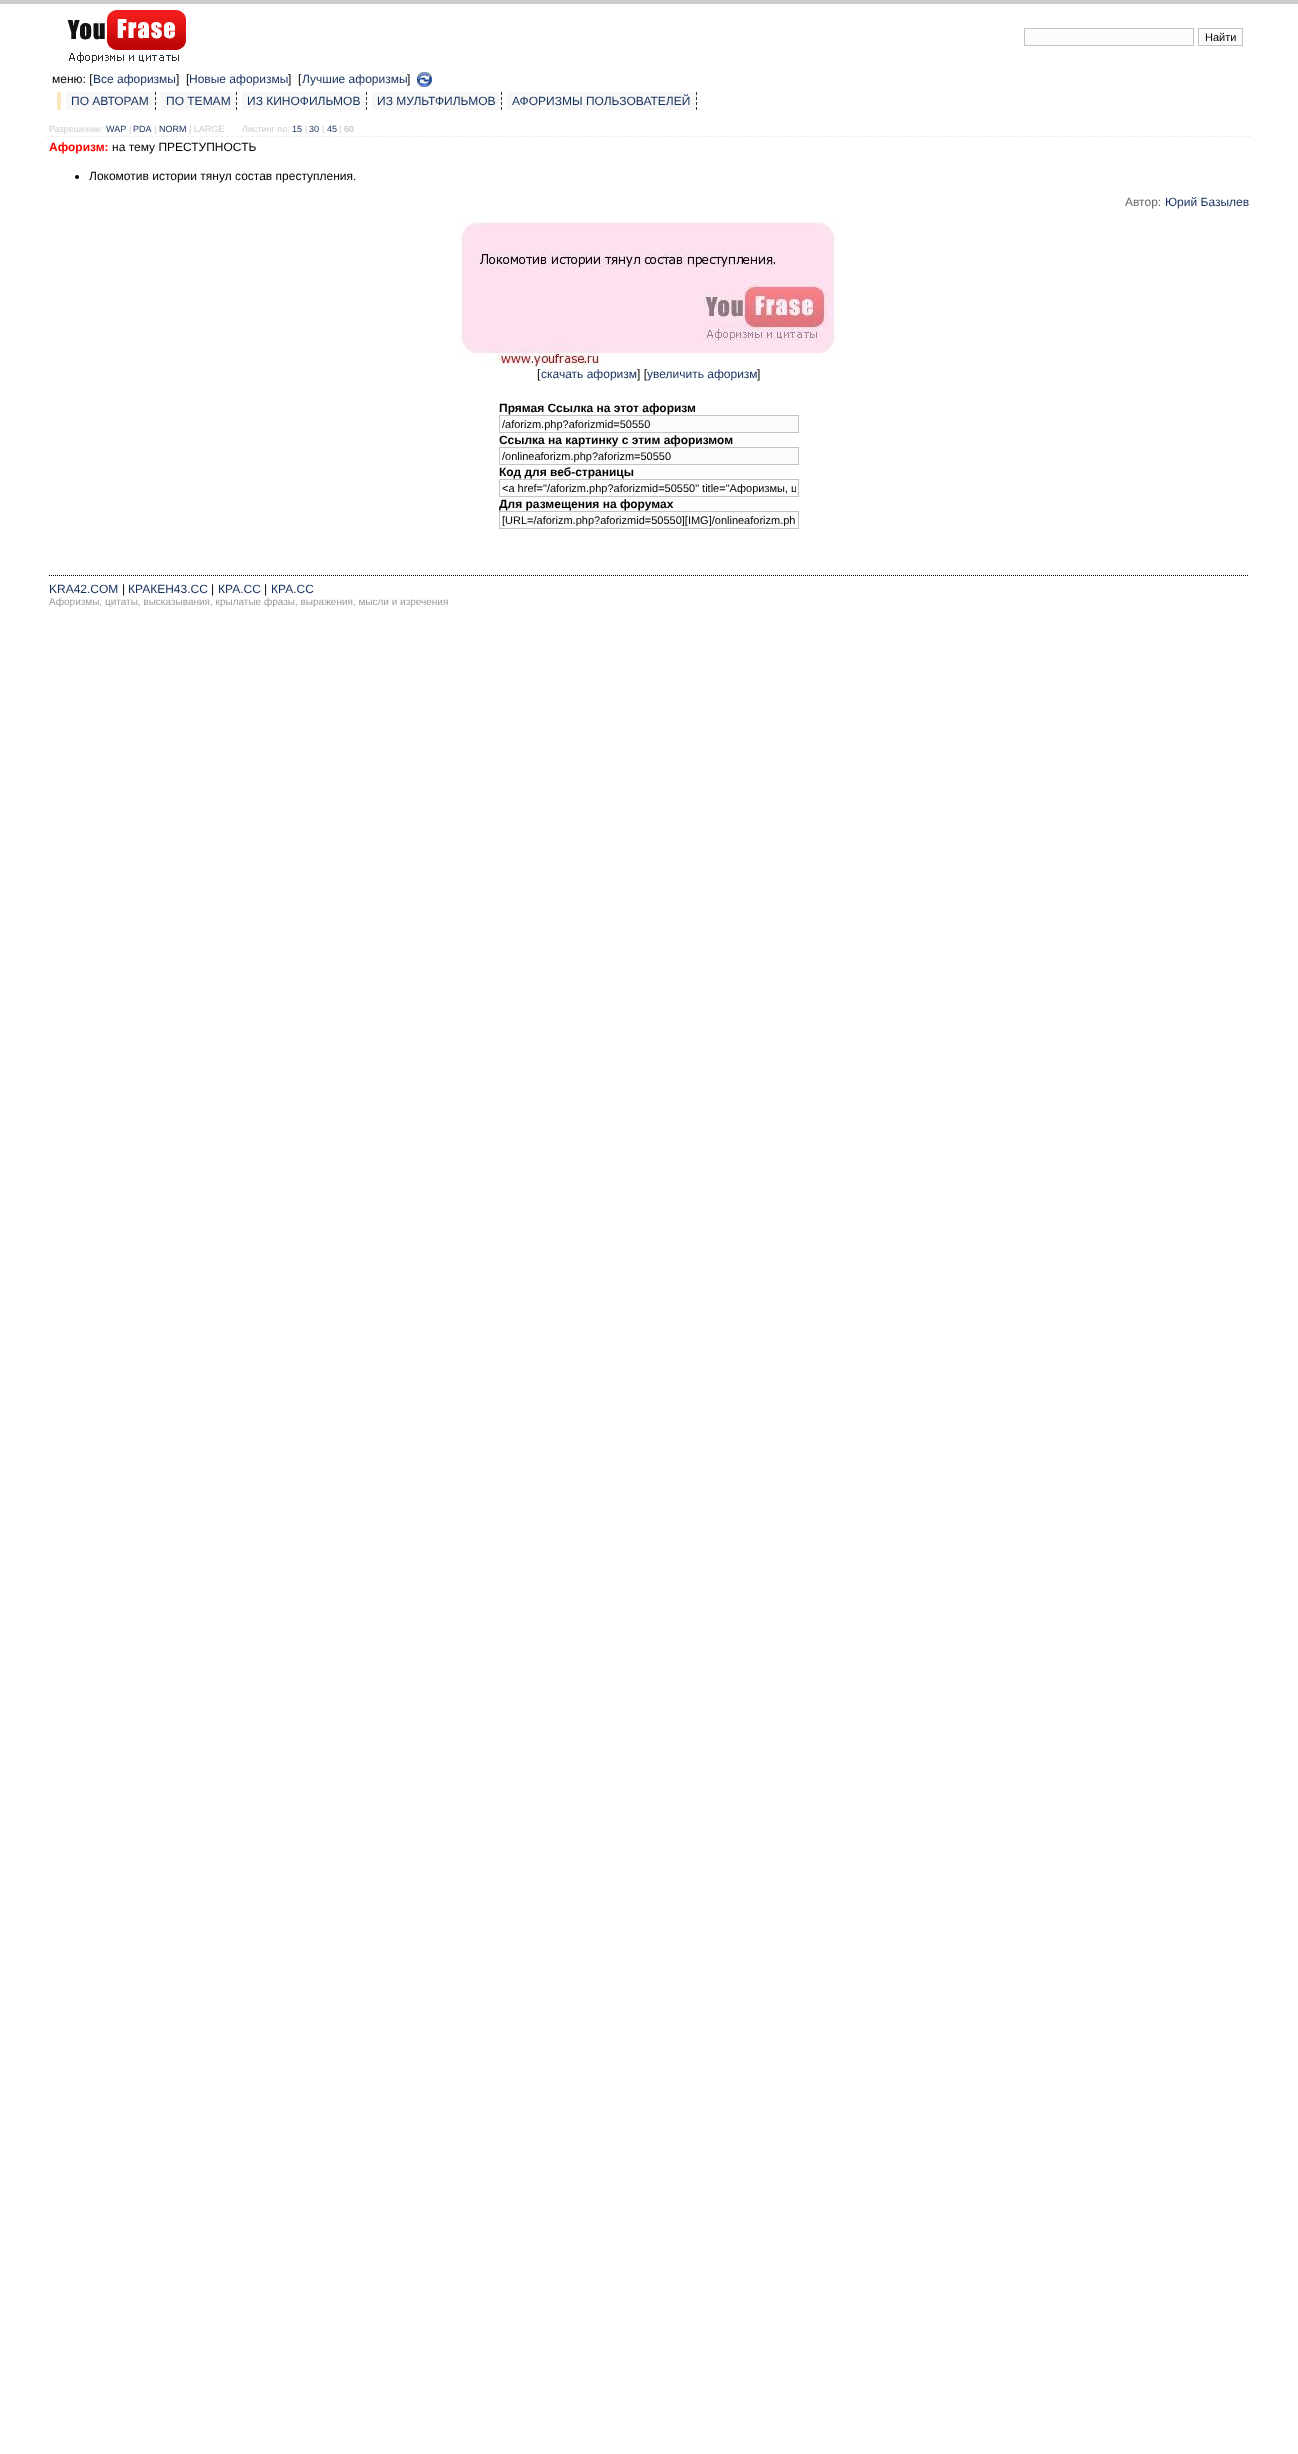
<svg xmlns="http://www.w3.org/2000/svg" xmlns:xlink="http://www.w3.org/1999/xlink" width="1298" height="2454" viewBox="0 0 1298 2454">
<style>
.cls-1{font:11px Liberation Sans;fill:#000000}
.cls-2{font:12px Liberation Sans;fill:#000000}
.cls-3{font:12px Liberation Sans;fill:#14305c}
.cls-4{font:9px Liberation Sans;fill:#cccccc}
.cls-5{font:9px Liberation Sans;fill:#14305c}
.cls-6{font:bold 9px Liberation Sans;fill:#cccccc}
.cls-7{font:bold 12px Liberation Sans;fill:#ff0000}
.cls-8{font:12px Liberation Sans;fill:#666666}
.cls-9{font:bold 12px Liberation Sans;fill:#000000}
.cls-10{font:10px Liberation Sans;fill:#999999}
</style>
<defs>
<clipPath id="clip1"><rect x="502" y="450" width="294" height="12"/></clipPath>
<clipPath id="clip2"><rect x="502" y="482" width="294" height="12"/></clipPath>
<clipPath id="clip3"><rect x="502" y="514" width="294" height="12"/></clipPath>
</defs>
<rect width="100%" height="100%" fill="#ffffff"/>
<rect fill="#cccccc" x="0" y="0" width="1298" height="4"/>
<image xlink:href="image0.png" x="67" y="10" width="119" height="53"/>
<rect fill="#fcfcfc" stroke="#c3c3c3" x="1024.5" y="28.5" width="169" height="17"/>
<rect fill="#fcfcfc" stroke="#c3c3c3" x="1198.5" y="28.5" width="44" height="17"/>
<image xlink:href="image1.png" x="417" y="72" width="15" height="15"/>
<rect fill="#fbe7bd" x="57" y="92" width="4" height="18"/>
<rect fill="#f7f7f7" x="66" y="92" width="90" height="18"/>
<path fill="none" stroke="#333333" stroke-dasharray="3 2" d="M155.5 92V110"/>
<rect fill="#f7f7f7" x="161" y="92" width="76" height="18"/>
<path fill="none" stroke="#333333" stroke-dasharray="3 2" d="M236.5 92V110"/>
<rect fill="#f7f7f7" x="242" y="92" width="125" height="18"/>
<path fill="none" stroke="#333333" stroke-dasharray="3 2" d="M366.5 92V110"/>
<rect fill="#f7f7f7" x="372" y="92" width="130" height="18"/>
<path fill="none" stroke="#333333" stroke-dasharray="3 2" d="M501.5 92V110"/>
<rect fill="#f7f7f7" x="507" y="92" width="190" height="18"/>
<path fill="none" stroke="#333333" stroke-dasharray="3 2" d="M696.5 92V110"/>
<path fill="none" stroke="#efefef" stroke-dasharray="3 1.99" d="M46 136.5H1252"/>
<circle fill="#000000" cx="77" cy="177" r="2"/>
<image xlink:href="image2.png" x="459" y="217" width="380" height="150"/>
<rect fill="#fcfcfc" stroke="#c3c3c3" x="499.5" y="415.5" width="299" height="17"/>
<rect fill="#fcfcfc" stroke="#c3c3c3" x="499.5" y="447.5" width="299" height="17"/>
<rect fill="#fcfcfc" stroke="#c3c3c3" x="499.5" y="479.5" width="299" height="17"/>
<rect fill="#fcfcfc" stroke="#c3c3c3" x="499.5" y="511.5" width="299" height="17"/>
<path fill="none" stroke="#000000" stroke-dasharray="1 1" d="M49 575.5H1249"/>
<text class="cls-1" x="1205" y="41">Найти</text>
<text class="cls-2" x="52" y="83">меню: [</text>
<text class="cls-3" x="93" y="83">Все афоризмы</text>
<text class="cls-2" xml:space="preserve" x="176" y="83">]  [</text>
<text class="cls-3" x="189" y="83">Новые афоризмы</text>
<text class="cls-2" xml:space="preserve" x="288" y="83">]  [</text>
<text class="cls-3" x="302" y="83">Лучшие афоризмы</text>
<text class="cls-2" x="407" y="83">]</text>
<text class="cls-3" x="71" y="105">ПО АВТОРАМ</text>
<text class="cls-3" x="166" y="105">ПО ТЕМАМ</text>
<text class="cls-3" x="247" y="105">ИЗ КИНОФИЛЬМОВ</text>
<text class="cls-3" x="377" y="105">ИЗ МУЛЬТФИЛЬМОВ</text>
<text class="cls-3" x="512" y="105">АФОРИЗМЫ ПОЛЬЗОВАТЕЛЕЙ</text>
<text class="cls-4" x="49" y="132">Разрешение:</text>
<text class="cls-5" x="106" y="132">WAP</text>
<text class="cls-4" x="129" y="132">|</text>
<text class="cls-5" x="133" y="132">PDA</text>
<text class="cls-4" x="154" y="132">|</text>
<text class="cls-5" x="159" y="132">NORM</text>
<text class="cls-4" x="189" y="132">| LARGE</text>
<text class="cls-4" x="242" y="132">Листинг по:</text>
<text class="cls-5" x="292" y="132">15</text>
<text class="cls-4" x="305" y="132">|</text>
<text class="cls-5" x="309" y="132">30</text>
<text class="cls-4" x="322" y="132">|</text>
<text class="cls-5" x="327" y="132">45</text>
<text class="cls-4" x="339" y="132">|</text>
<text class="cls-6" x="344" y="132">60</text>
<text class="cls-7" x="49" y="151">Афоризм:</text>
<text class="cls-2" x="112" y="151">на тему ПРЕСТУПНОСТЬ</text>
<text class="cls-2" x="89" y="180">Локомотив истории тянул состав преступления.</text>
<text class="cls-8" x="1125" y="206">Автор:</text>
<text class="cls-3" x="1165" y="206">Юрий Базылев</text>
<text class="cls-2" x="537" y="378">[</text>
<text class="cls-3" x="541" y="378">скачать афоризм</text>
<text class="cls-2" x="637" y="378">] [</text>
<text class="cls-3" x="647" y="378">увеличить афоризм</text>
<text class="cls-2" x="757" y="378">]</text>
<text class="cls-9" x="499" y="412">Прямая Ссылка на этот афоризм</text>
<text class="cls-1" x="502" y="428">/aforizm.php?aforizmid=50550</text>
<text class="cls-9" x="499" y="444">Ссылка на картинку с этим афоризмом</text>
<g clip-path="url(#clip1)">
<text class="cls-1" x="502" y="460">/onlineaforizm.php?aforizm=50550</text>
</g>
<text class="cls-9" x="499" y="476">Код для веб-страницы</text>
<g clip-path="url(#clip2)">
<text class="cls-1" x="502" y="492">&lt;a href="/aforizm.php?aforizmid=50550" title="Афоризмы, ц</text>
</g>
<text class="cls-9" x="499" y="508">Для размещения на форумах</text>
<g clip-path="url(#clip3)">
<text class="cls-1" x="502" y="524">[URL=/aforizm.php?aforizmid=50550][IMG]/onlineaforizm.ph</text>
</g>
<text class="cls-3" x="49" y="593">KRA42.COM</text>
<text class="cls-2" x="122" y="593">|</text>
<text class="cls-3" x="128" y="593">КРАКЕН43.CC</text>
<text class="cls-2" x="211" y="593">|</text>
<text class="cls-3" x="218" y="593">КРА.CC</text>
<text class="cls-2" x="264" y="593">|</text>
<text class="cls-3" x="271" y="593">КРА.CC</text>
<text class="cls-10" x="49" y="605">Афоризмы, цитаты, высказывания, крылатые фразы, выражения, мысли и изречения</text>
</svg>
